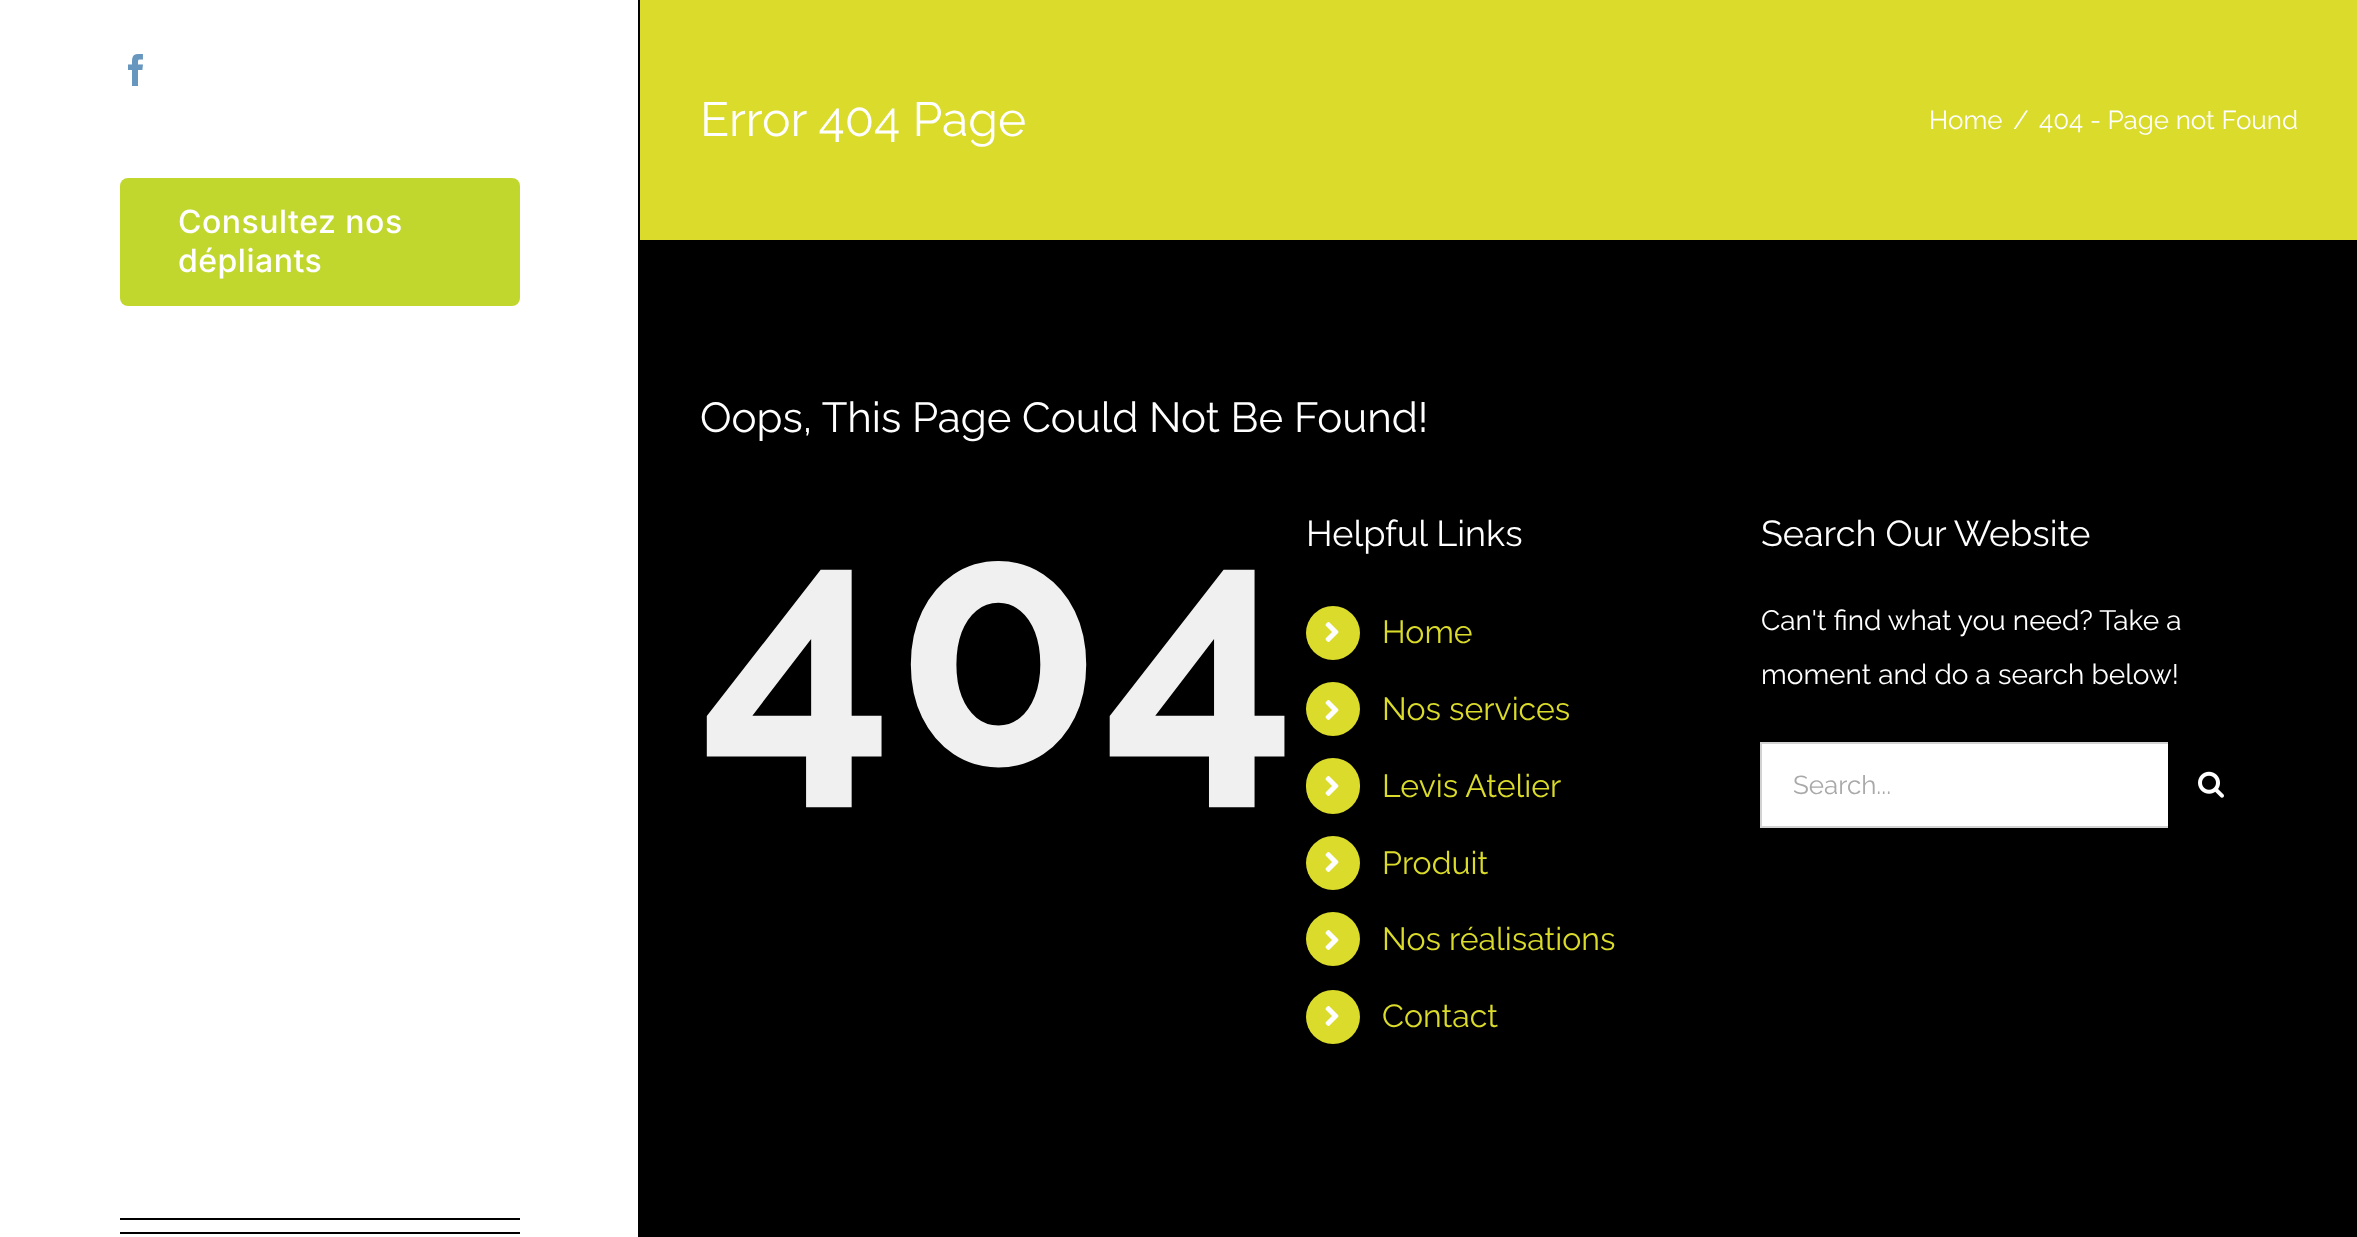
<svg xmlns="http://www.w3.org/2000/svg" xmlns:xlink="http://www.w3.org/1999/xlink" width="2357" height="1237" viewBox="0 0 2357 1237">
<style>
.cls-1{font:48px Raleway;fill:#ffffff}
.cls-2{font:26px Raleway;fill:#ffffff}
.cls-3{font:500 32px Inter;letter-spacing:0.5px;fill:#ffffff}
.cls-4{font:42px Raleway;fill:#ffffff}
.cls-5{font:bold 340px Raleway;fill:#f0f0f0}
.cls-6{font:36px Raleway;fill:#ffffff}
.cls-7{font:32px Raleway;fill:#dadb2a}
.cls-8{font:28px Raleway;fill:#ffffff}
.cls-9{font:26px Raleway;fill:#aaa9a9}
</style>
<rect width="100%" height="100%" fill="#000000"/>
<rect fill="#dadb2a" x="640" y="0" width="1717" height="240"/>
<rect fill="#ffffff" x="0" y="0" width="638" height="1237"/>
<image xlink:href="image0.png" x="128" y="54" width="15" height="32"/>
<rect fill="#c1d72e" x="120" y="178" width="400" height="128" rx="8"/>
<rect fill="#000000" x="120" y="1218" width="400" height="2"/>
<rect fill="#000000" x="120" y="1232" width="400" height="2"/>
<circle fill="#dadb2a" cx="1333" cy="633" r="27"/>
<image xlink:href="image1.png" x="1325" y="622" width="14" height="20"/>
<circle fill="#dadb2a" cx="1333" cy="709" r="27"/>
<image xlink:href="image1.png" x="1325" y="700" width="14" height="20"/>
<rect fill="#dadb2a" x="1306" y="758" width="54" height="56" rx="27"/>
<image xlink:href="image1.png" x="1325" y="776" width="14" height="20"/>
<circle fill="#dadb2a" cx="1333" cy="863" r="27"/>
<image xlink:href="image1.png" x="1325" y="852" width="14" height="20"/>
<circle fill="#dadb2a" cx="1333" cy="939" r="27"/>
<image xlink:href="image1.png" x="1325" y="930" width="14" height="20"/>
<circle fill="#dadb2a" cx="1333" cy="1017" r="27"/>
<image xlink:href="image1.png" x="1325" y="1006" width="14" height="20"/>
<rect fill="#ffffff" x="1762" y="744" width="406" height="82"/>
<rect fill="#d2d2d2" x="1760" y="742" width="408" height="2"/>
<rect fill="#d2d2d2" x="1760" y="826" width="408" height="2"/>
<rect fill="#d2d2d2" x="1760" y="742" width="2" height="86"/>
<image xlink:href="image2.png" x="2198" y="771" width="26" height="27"/>
<text class="cls-1" x="700" y="136">Error 404 Page</text>
<text class="cls-2" x="1929" y="129">Home</text>
<text class="cls-2" x="2013" y="129">/</text>
<text class="cls-2" x="2039" y="129">404 - Page not Found</text>
<text class="cls-3"><tspan x="178" y="233">Consultez nos</tspan><tspan x="178" y="272">dépliants</tspan></text>
<text class="cls-4" x="700" y="432">Oops, This Page Could Not Be Found!</text>
<text class="cls-5" x="700" y="764">404</text>
<text class="cls-6" x="1306" y="546">Helpful Links</text>
<text class="cls-7" x="1382" y="643">Home</text>
<text class="cls-7" x="1382" y="720">Nos services</text>
<text class="cls-7" x="1382" y="797">Levis Atelier</text>
<text class="cls-7" x="1382" y="874">Produit</text>
<text class="cls-7" x="1382" y="950">Nos réalisations</text>
<text class="cls-7" x="1382" y="1027">Contact</text>
<text class="cls-6" x="1761" y="546">Search Our Website</text>
<text class="cls-8"><tspan x="1761" y="630">Can't find what you need? Take a</tspan><tspan x="1761" y="684">moment and do a search below!</tspan></text>
<text class="cls-9" x="1793" y="794">Search...</text>
</svg>
